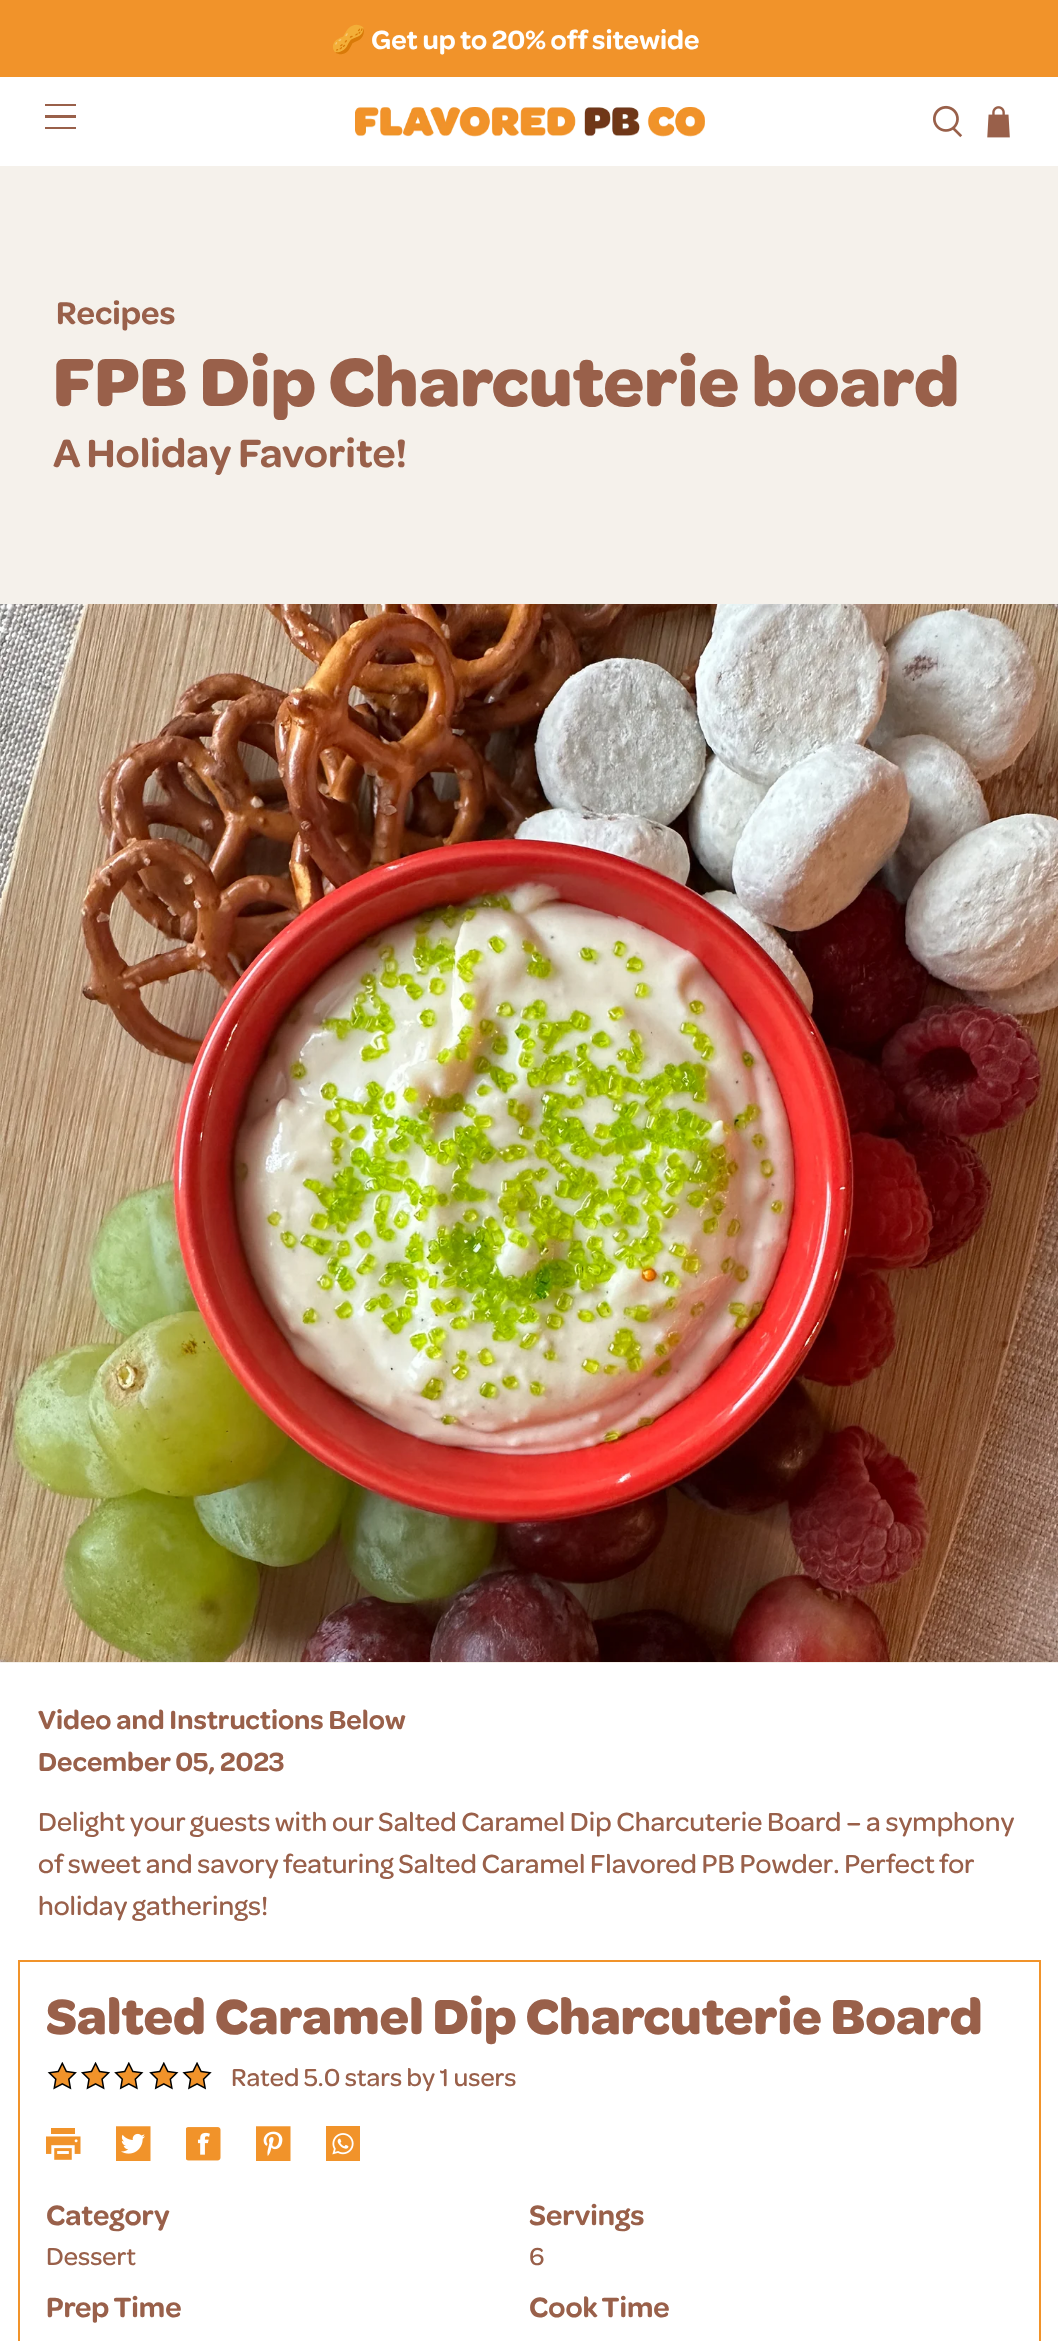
<svg xmlns="http://www.w3.org/2000/svg" xmlns:xlink="http://www.w3.org/1999/xlink" width="1058" height="2341" viewBox="0 0 1058 2341">
<style>
.cls-1{font:bold 28px Noto Color Emoji;fill:#ffffff}
.cls-2{font:600 28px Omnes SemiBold;fill:#ffffff}
.cls-3{font:600 33.5px Omnes SemiBold;fill:#99604a}
.cls-4{font:bold 72.75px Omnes;fill:#99604a}
.cls-5{font:600 42px Omnes SemiBold;fill:#99604a}
.cls-6{font:600 28px Omnes SemiBold;fill:#99604a}
.cls-7{font:500 28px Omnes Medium;fill:#99604a}
.cls-8{font:bold 52.5px Omnes;fill:#99604a}
.cls-9{font:500 26.25px Omnes Medium;fill:#99604a}
.cls-10{font:600 29.75px Omnes SemiBold;fill:#99604a}
</style>
<rect width="100%" height="100%" fill="#ffffff"/>
<rect fill="#f1932a" x="0" y="0" width="1058" height="77"/>
<rect fill="#99604a" x="45" y="104" width="31" height="2"/>
<rect fill="#99604a" x="45" y="115" width="31" height="3"/>
<rect fill="#99604a" x="45" y="127" width="31" height="2"/>
<image xlink:href="image0.png" x="355" y="107" width="350" height="30"/>
<image xlink:href="image1.png" x="933" y="105" width="30" height="33"/>
<image xlink:href="image2.png" x="987" y="106" width="23" height="32"/>
<rect fill="#f5f1eb" x="0" y="166" width="1058" height="1497"/>
<image xlink:href="image3.png" x="0" y="604" width="1058" height="1058"/>
<rect fill="none" stroke="#f1932a" stroke-width="2" x="19" y="1961" width="1021" height="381"/>
<image xlink:href="image4.png" x="47" y="2062" width="30" height="28"/>
<image xlink:href="image5.png" x="81" y="2062" width="29" height="28"/>
<image xlink:href="image6.png" x="114" y="2062" width="30" height="28"/>
<image xlink:href="image6.png" x="149" y="2062" width="30" height="28"/>
<image xlink:href="image7.png" x="182" y="2062" width="30" height="28"/>
<image xlink:href="image8.png" x="46" y="2128" width="35" height="32"/>
<image xlink:href="image9.png" x="116" y="2126" width="35" height="35"/>
<image xlink:href="image10.png" x="186" y="2127" width="35" height="34"/>
<image xlink:href="image11.png" x="256" y="2126" width="35" height="35"/>
<image xlink:href="image12.png" x="326" y="2126" width="34" height="35"/>
<text class="cls-1" x="331" y="49">🥜</text>
<text class="cls-2" x="371" y="49">Get up to 20% off sitewide</text>
<text class="cls-3" x="56" y="324">Recipes</text>
<text class="cls-4" x="53" y="406">FPB Dip Charcuterie board</text>
<text class="cls-5" x="53" y="467">A Holiday Favorite!</text>
<text class="cls-6"><tspan x="38" y="1729">Video and Instructions Below</tspan><tspan x="38" y="1771">December 05, 2023</tspan></text>
<text class="cls-7"><tspan x="38" y="1831">Delight your guests with our Salted Caramel Dip Charcuterie Board – a symphony</tspan><tspan x="38" y="1873">of sweet and savory featuring Salted Caramel Flavored PB Powder. Perfect for</tspan><tspan x="38" y="1915">holiday gatherings!</tspan></text>
<text class="cls-8" x="46" y="2034">Salted Caramel Dip Charcuterie Board</text>
<text class="cls-9" x="231" y="2086">Rated 5.0 stars by 1 users</text>
<text class="cls-10" x="46" y="2225">Category</text>
<text class="cls-9" x="46" y="2265">Dessert</text>
<text class="cls-10" x="529" y="2225">Servings</text>
<text class="cls-9" x="529" y="2265">6</text>
<text class="cls-10" x="46" y="2317">Prep Time</text>
<text class="cls-10" x="529" y="2317">Cook Time</text>
</svg>
